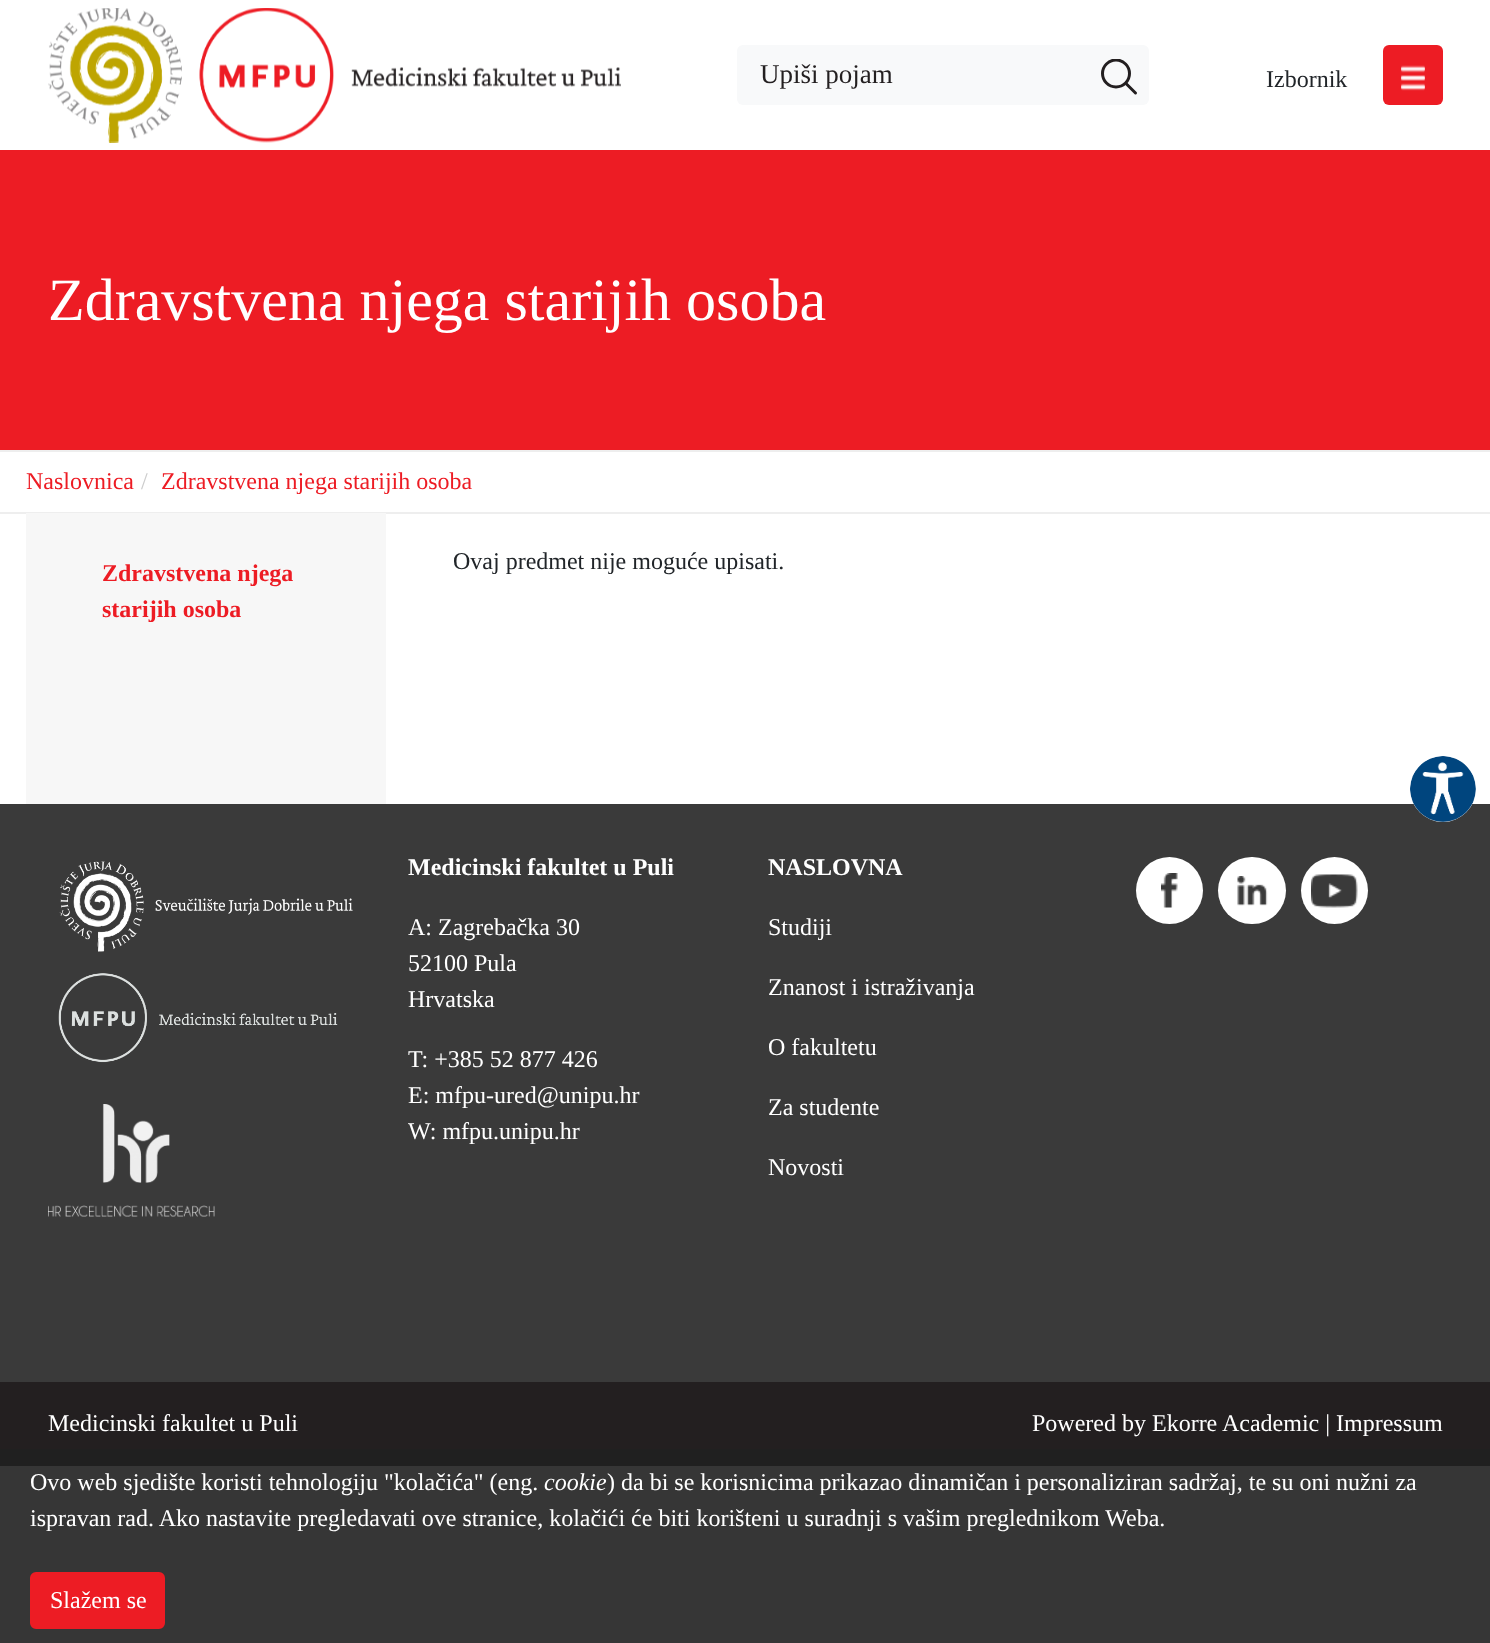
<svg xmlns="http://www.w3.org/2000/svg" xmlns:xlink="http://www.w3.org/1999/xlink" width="1490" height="1643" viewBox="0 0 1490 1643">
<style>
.cls-1{font:27px Liberation Serif;fill:#231f20}
.cls-2{font:24px Liberation Serif;fill:#212529}
.cls-3{font:60px Liberation Serif;fill:#ffffff}
.cls-4{font:24px Liberation Serif;fill:#ed1c24}
.cls-5{font:24px Liberation Serif;fill:#cccccc}
.cls-6{font:bold 24px Liberation Serif;fill:#ed1c24}
.cls-7{font:bold 24px Liberation Serif;fill:#ffffff}
.cls-8{font:24px Liberation Serif;fill:#ffffff}
.cls-9{font:italic 24px Liberation Serif;fill:#ffffff}
</style>
<defs>
<clipPath id="clip1"><rect x="1101" y="59" width="36" height="36"/></clipPath>
</defs>
<rect width="100%" height="100%" fill="#ffffff"/>
<rect fill="#363636" x="0" y="1466" width="1490" height="177"/>
<image xlink:href="image0.png" x="48" y="8" width="573" height="135"/>
<rect fill="#f8f9fa" x="737" y="45" width="412" height="60" rx="6"/>
<g clip-path="url(#clip1)">
<circle fill="none" stroke="#231f20" stroke-width="3" cx="1116" cy="73.5" r="13.5"/>
</g>
<path fill="none" stroke="#231f20" stroke-width="3" stroke-linecap="round" stroke-linejoin="round" d="M1135.5 93L1126.5 84"/>
<rect fill="#ed1c24" x="1383" y="45" width="60" height="60" rx="6"/>
<image xlink:href="image1.png" x="1401" y="65" width="24" height="26"/>
<rect fill="#ed1c24" x="0" y="150" width="1490" height="300"/>
<rect fill="#eeeeee" x="0" y="450" width="1490" height="2"/>
<rect fill="#eeeeee" x="0" y="512" width="1490" height="2"/>
<rect fill="#f7f7f7" x="26" y="513" width="360" height="291"/>
<rect fill="#3a3a3a" x="0" y="804" width="1490" height="578"/>
<circle fill="#ffffff" cx="1443" cy="789" r="33"/>
<image xlink:href="image2.png" x="1410" y="756" width="66" height="66"/>
<image xlink:href="image3.png" x="59" y="861" width="294" height="91"/>
<image xlink:href="image4.png" x="58" y="973" width="280" height="90"/>
<image xlink:href="image5.png" x="48" y="1104" width="167" height="113"/>
<circle fill="#ffffff" cx="1169.5" cy="890.5" r="33.5"/>
<image xlink:href="image6.png" x="1161" y="873" width="17" height="35"/>
<rect fill="#ffffff" x="1218" y="857" width="68" height="67" rx="33.5"/>
<image xlink:href="image7.png" x="1237" y="876" width="31" height="30"/>
<circle fill="#ffffff" cx="1334.5" cy="890.5" r="33.5"/>
<image xlink:href="image8.png" x="1311" y="874" width="47" height="34"/>
<rect fill="#231f20" x="0" y="1382" width="1490" height="67"/>
<rect fill="#202020" x="0" y="1449" width="1490" height="17"/>
<rect fill="#ed1c24" stroke="#ed1c24" stroke-width="2" x="31" y="1573" width="133" height="55" rx="5"/>
<text class="cls-1" x="760" y="83">Upiši pojam</text>
<text class="cls-2" x="1266" y="87">Izbornik</text>
<text class="cls-3" x="48" y="320">Zdravstvena njega starijih osoba</text>
<text class="cls-4" x="26" y="489">Naslovnica</text>
<text class="cls-5" x="141" y="489">/</text>
<text class="cls-4" x="161" y="489">Zdravstvena njega starijih osoba</text>
<text class="cls-6"><tspan x="102" y="581">Zdravstvena njega</tspan><tspan x="102" y="617">starijih osoba</tspan></text>
<text class="cls-2" x="453" y="569">Ovaj predmet nije moguće upisati.</text>
<text class="cls-7" x="408" y="875">Medicinski fakultet u Puli</text>
<text class="cls-8"><tspan x="408" y="935">A: Zagrebačka 30</tspan><tspan x="408" y="971">52100 Pula</tspan><tspan x="408" y="1007">Hrvatska</tspan></text>
<text class="cls-8"><tspan x="408" y="1067">T: +385 52 877 426</tspan><tspan x="408" y="1103">E: mfpu-ured@unipu.hr</tspan><tspan x="408" y="1139">W: mfpu.unipu.hr</tspan></text>
<text class="cls-7" x="768" y="875">NASLOVNA</text>
<text class="cls-8" x="768" y="935">Studiji</text>
<text class="cls-8" x="768" y="995">Znanost i istraživanja</text>
<text class="cls-8" x="768" y="1055">O fakultetu</text>
<text class="cls-8" x="768" y="1115">Za studente</text>
<text class="cls-8" x="768" y="1175">Novosti</text>
<text class="cls-8" x="48" y="1431">Medicinski fakultet u Puli</text>
<text class="cls-8" x="1032" y="1431">Powered by Ekorre Academic | Impressum</text>
<text class="cls-8" x="30" y="1490">Ovo web sjedište koristi tehnologiju "kolačića" (eng.</text>
<text class="cls-9" x="544" y="1490">cookie</text>
<text class="cls-8" x="607" y="1490">) da bi se korisnicima prikazao dinamičan i personaliziran sadržaj, te su oni nužni za</text>
<text class="cls-8" x="30" y="1526">ispravan rad. Ako nastavite pregledavati ove stranice, kolačići će biti korišteni u suradnji s vašim preglednikom Weba.</text>
<text class="cls-8" x="50" y="1608">Slažem se</text>
</svg>
